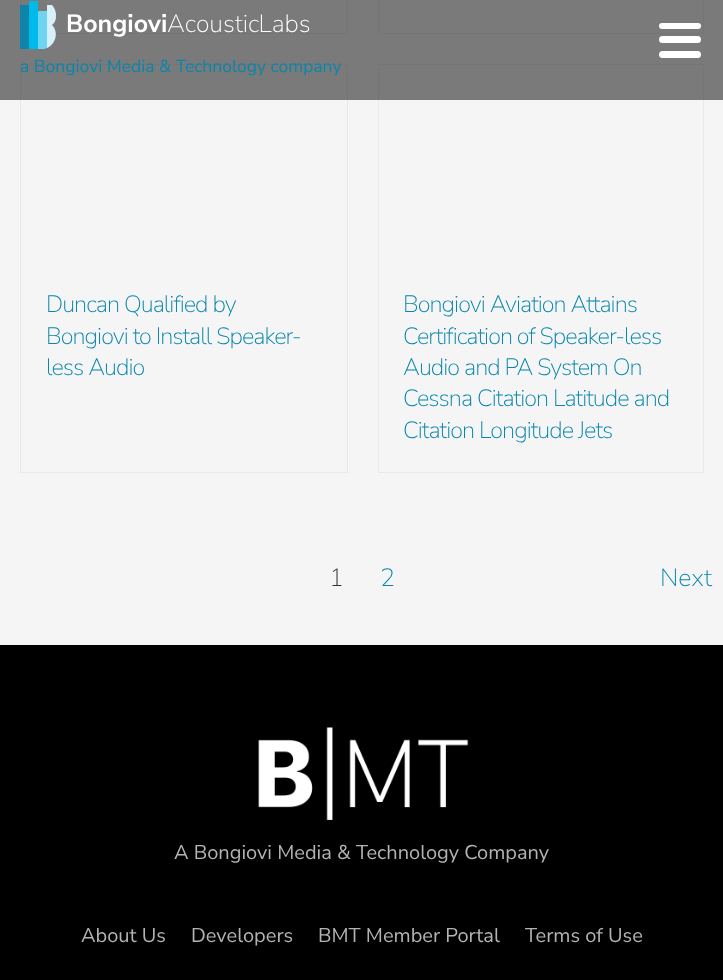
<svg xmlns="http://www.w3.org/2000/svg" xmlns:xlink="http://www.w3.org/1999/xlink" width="723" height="980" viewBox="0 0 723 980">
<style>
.cls-1{font:bold 25px Nunito Sans;fill:#ffffff}
.cls-2{font:200 25px Nunito Sans;fill:#ffffff}
.cls-3{font:17.5px Nunito Sans;fill:#0986ac}
.cls-4{font:200 23.6px Nunito Sans;letter-spacing:-0.95px;fill:#0986ac}
.cls-5{font:200 25px Nunito Sans;fill:#333333}
.cls-6{font:200 25px Nunito Sans;fill:#0986ac}
.cls-7{font:20px Nunito Sans;fill:#b3b3b3}
</style>
<defs>
<clipPath id="clip1"><path d="M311 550H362V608H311ZM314 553H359V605H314Z" clip-rule="evenodd"/></clipPath>
</defs>
<rect width="100%" height="100%" fill="#f5f5f5"/>
<rect fill="none" stroke="#eaeaea" x="20.5" y="-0.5" width="327" height="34"/>
<rect fill="none" stroke="#eaeaea" x="378.5" y="-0.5" width="325" height="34"/>
<rect fill="none" stroke="#eaeaea" x="20.5" y="64.5" width="327" height="408"/>
<rect fill="none" stroke="#eaeaea" x="378.5" y="64.5" width="325" height="408"/>
<rect fill="#000000" fill-opacity="0.5" x="0" y="0" width="723" height="100"/>
<rect fill="#0e84ab" x="20" y="5" width="9" height="44"/>
<rect fill="#00baeb" x="29" y="1" width="9" height="48"/>
<path fill="#6fd3f2" d="M38 11V49C41 49 44 49.5 47 48V11Z"/>
<path fill="#d8f0fa" d="M47 5V48C56 44 59 32 52 25C58 21 57 10 52 5Z"/>
<rect fill="#ffffff" x="659" y="23" width="42" height="6" rx="3"/>
<rect fill="#ffffff" x="659" y="36" width="42" height="7" rx="3.5"/>
<rect fill="#ffffff" x="659" y="51" width="42" height="7" rx="3.5"/>
<g clip-path="url(#clip1)">
<rect fill="#878787" fill-opacity="0.75" filter="blur(0.5px)" x="314" y="553" width="45" height="52"/>
</g>
<rect fill="#000000" x="0" y="645" width="723" height="335"/>
<image xlink:href="image0.png" x="258" y="727" width="211" height="93"/>
<text class="cls-1" x="66" y="32">Bongiovi</text>
<text class="cls-2" x="167" y="32" word-spacing="-7">Acoustic Labs</text>
<text class="cls-3" x="20" y="72">a Bongiovi Media &amp; Technology company</text>
<text class="cls-4"><tspan x="46" y="312">Duncan Qualified by</tspan><tspan x="46" y="344">Bongiovi to Install Speaker-</tspan><tspan x="46" y="375">less Audio</tspan></text>
<text class="cls-4"><tspan x="403" y="312">Bongiovi Aviation Attains</tspan><tspan x="403" y="344">Certification of Speaker-less</tspan><tspan x="403" y="375">Audio and PA System On</tspan><tspan x="403" y="406">Cessna Citation Latitude and</tspan><tspan x="403" y="438">Citation Longitude Jets</tspan></text>
<text class="cls-5" x="329" y="586">1</text>
<text class="cls-6" x="380" y="586">2</text>
<text class="cls-6" x="660" y="586">Next</text>
<text class="cls-7" x="174" y="859">A Bongiovi Media &amp; Technology Company</text>
<text class="cls-7" x="81" y="942">About Us</text>
<text class="cls-7" x="191" y="942">Developers</text>
<text class="cls-7" x="318" y="942">BMT Member Portal</text>
<text class="cls-7" x="525" y="942">Terms of Use</text>
</svg>
